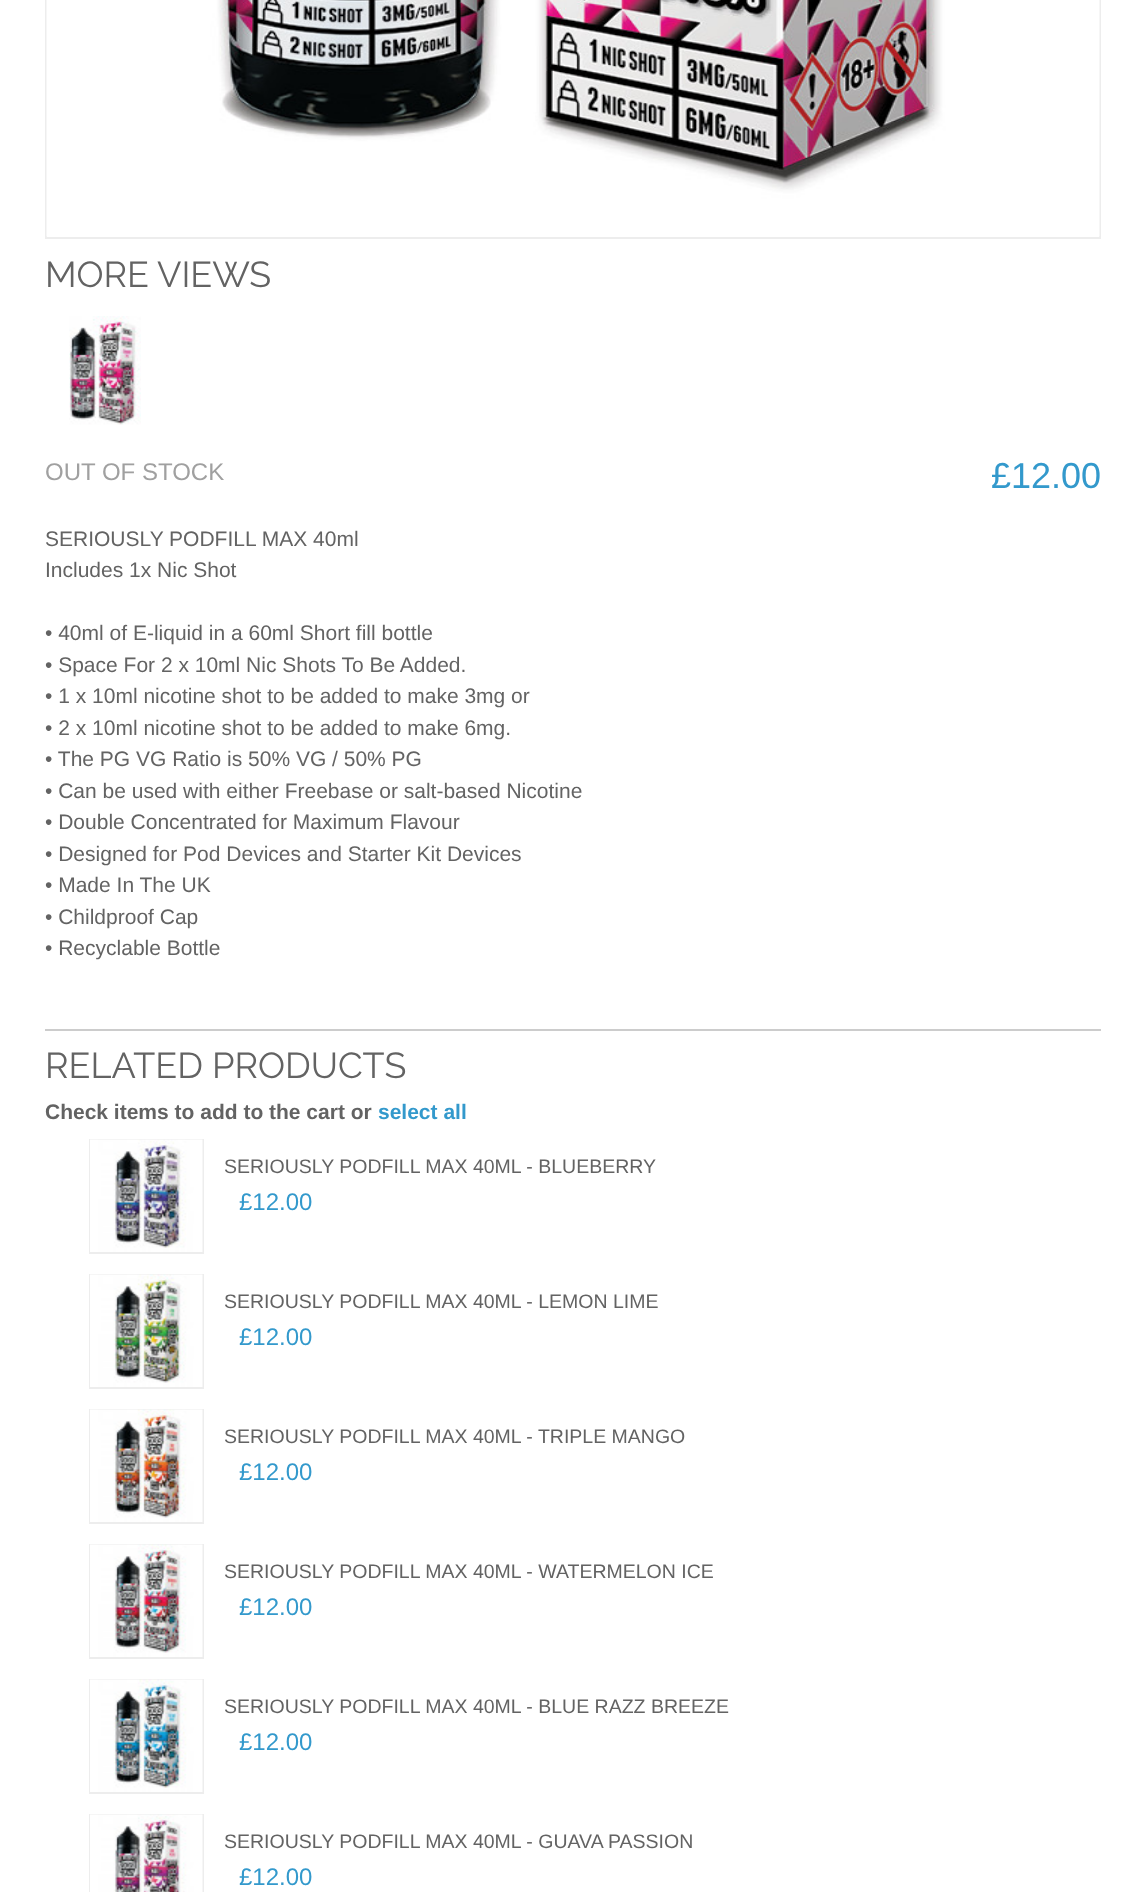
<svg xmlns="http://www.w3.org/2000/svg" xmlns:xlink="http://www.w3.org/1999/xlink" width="1146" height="1892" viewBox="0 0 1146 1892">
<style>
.cls-1{font:36px Raleway;fill:#636363}
.cls-2{font:24px Liberation Sans;fill:#a0a0a0}
.cls-3{font:36px Liberation Sans;fill:#3399cc}
.cls-4{font:21px Liberation Sans;fill:#636363}
.cls-5{font:bold 21px Liberation Sans;fill:#636363}
.cls-6{font:bold 21px Liberation Sans;fill:#3399cc}
.cls-7{font:19.5px Liberation Sans;fill:#636363}
.cls-8{font:24px Liberation Sans;fill:#3399cc}
</style>
<rect width="100%" height="100%" fill="#ffffff"/>
<rect fill="none" stroke="#ededed" stroke-width="2" x="46" y="-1" width="1054" height="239"/>
<image xlink:href="image0.png" x="46" y="0" width="1054" height="237"/>
<image xlink:href="image1.png" x="69" y="316" width="72" height="109"/>
<rect fill="#cccccc" x="45" y="1029" width="1056" height="2"/>
<rect fill="none" stroke="#ededed" stroke-width="2" x="90" y="1140" width="113" height="113"/>
<image xlink:href="image2.png" x="90" y="1139" width="113" height="113"/>
<rect fill="none" stroke="#ededed" stroke-width="2" x="90" y="1275" width="113" height="113"/>
<image xlink:href="image3.png" x="90" y="1274" width="113" height="113"/>
<rect fill="none" stroke="#ededed" stroke-width="2" x="90" y="1410" width="113" height="113"/>
<image xlink:href="image4.png" x="90" y="1409" width="113" height="113"/>
<rect fill="none" stroke="#ededed" stroke-width="2" x="90" y="1545" width="113" height="113"/>
<image xlink:href="image5.png" x="90" y="1544" width="113" height="113"/>
<rect fill="none" stroke="#ededed" stroke-width="2" x="90" y="1680" width="113" height="113"/>
<image xlink:href="image6.png" x="90" y="1679" width="113" height="113"/>
<rect fill="none" stroke="#ededed" stroke-width="2" x="90" y="1815" width="113" height="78"/>
<image xlink:href="image7.png" x="90" y="1814" width="113" height="78"/>
<text class="cls-1" x="45" y="287">MORE VIEWS</text>
<text class="cls-2" x="45" y="480">OUT OF STOCK</text>
<text class="cls-3" x="991" y="488">£12.00</text>
<text class="cls-4"><tspan x="45" y="546">SERIOUSLY PODFILL MAX 40ml</tspan><tspan x="45" y="577">Includes 1x Nic Shot</tspan></text>
<text class="cls-4"><tspan x="45" y="640">• 40ml of E-liquid in a 60ml Short fill bottle</tspan><tspan x="45" y="672">• Space For 2 x 10ml Nic Shots To Be Added.</tspan><tspan x="45" y="703">• 1 x 10ml nicotine shot to be added to make 3mg or</tspan><tspan x="45" y="735">• 2 x 10ml nicotine shot to be added to make 6mg.</tspan><tspan x="45" y="766">• The PG VG Ratio is 50% VG / 50% PG</tspan><tspan x="45" y="798">• Can be used with either Freebase or salt-based Nicotine</tspan><tspan x="45" y="829">• Double Concentrated for Maximum Flavour</tspan><tspan x="45" y="861">• Designed for Pod Devices and Starter Kit Devices</tspan><tspan x="45" y="892">• Made In The UK</tspan><tspan x="45" y="924">• Childproof Cap</tspan><tspan x="45" y="955">• Recyclable Bottle</tspan></text>
<text class="cls-1" x="45" y="1078">RELATED PRODUCTS</text>
<text class="cls-5" x="45" y="1119">Check items to add to the cart or</text>
<text class="cls-6" x="378" y="1119">select all</text>
<text class="cls-7" x="224" y="1173">SERIOUSLY PODFILL MAX 40ML - BLUEBERRY</text>
<text class="cls-8" x="239" y="1210">£12.00</text>
<text class="cls-7" x="224" y="1308">SERIOUSLY PODFILL MAX 40ML - LEMON LIME</text>
<text class="cls-8" x="239" y="1345">£12.00</text>
<text class="cls-7" x="224" y="1443">SERIOUSLY PODFILL MAX 40ML - TRIPLE MANGO</text>
<text class="cls-8" x="239" y="1480">£12.00</text>
<text class="cls-7" x="224" y="1578">SERIOUSLY PODFILL MAX 40ML - WATERMELON ICE</text>
<text class="cls-8" x="239" y="1615">£12.00</text>
<text class="cls-7" x="224" y="1713">SERIOUSLY PODFILL MAX 40ML - BLUE RAZZ BREEZE</text>
<text class="cls-8" x="239" y="1750">£12.00</text>
<text class="cls-7" x="224" y="1848">SERIOUSLY PODFILL MAX 40ML - GUAVA PASSION</text>
<text class="cls-8" x="239" y="1885">£12.00</text>
</svg>
